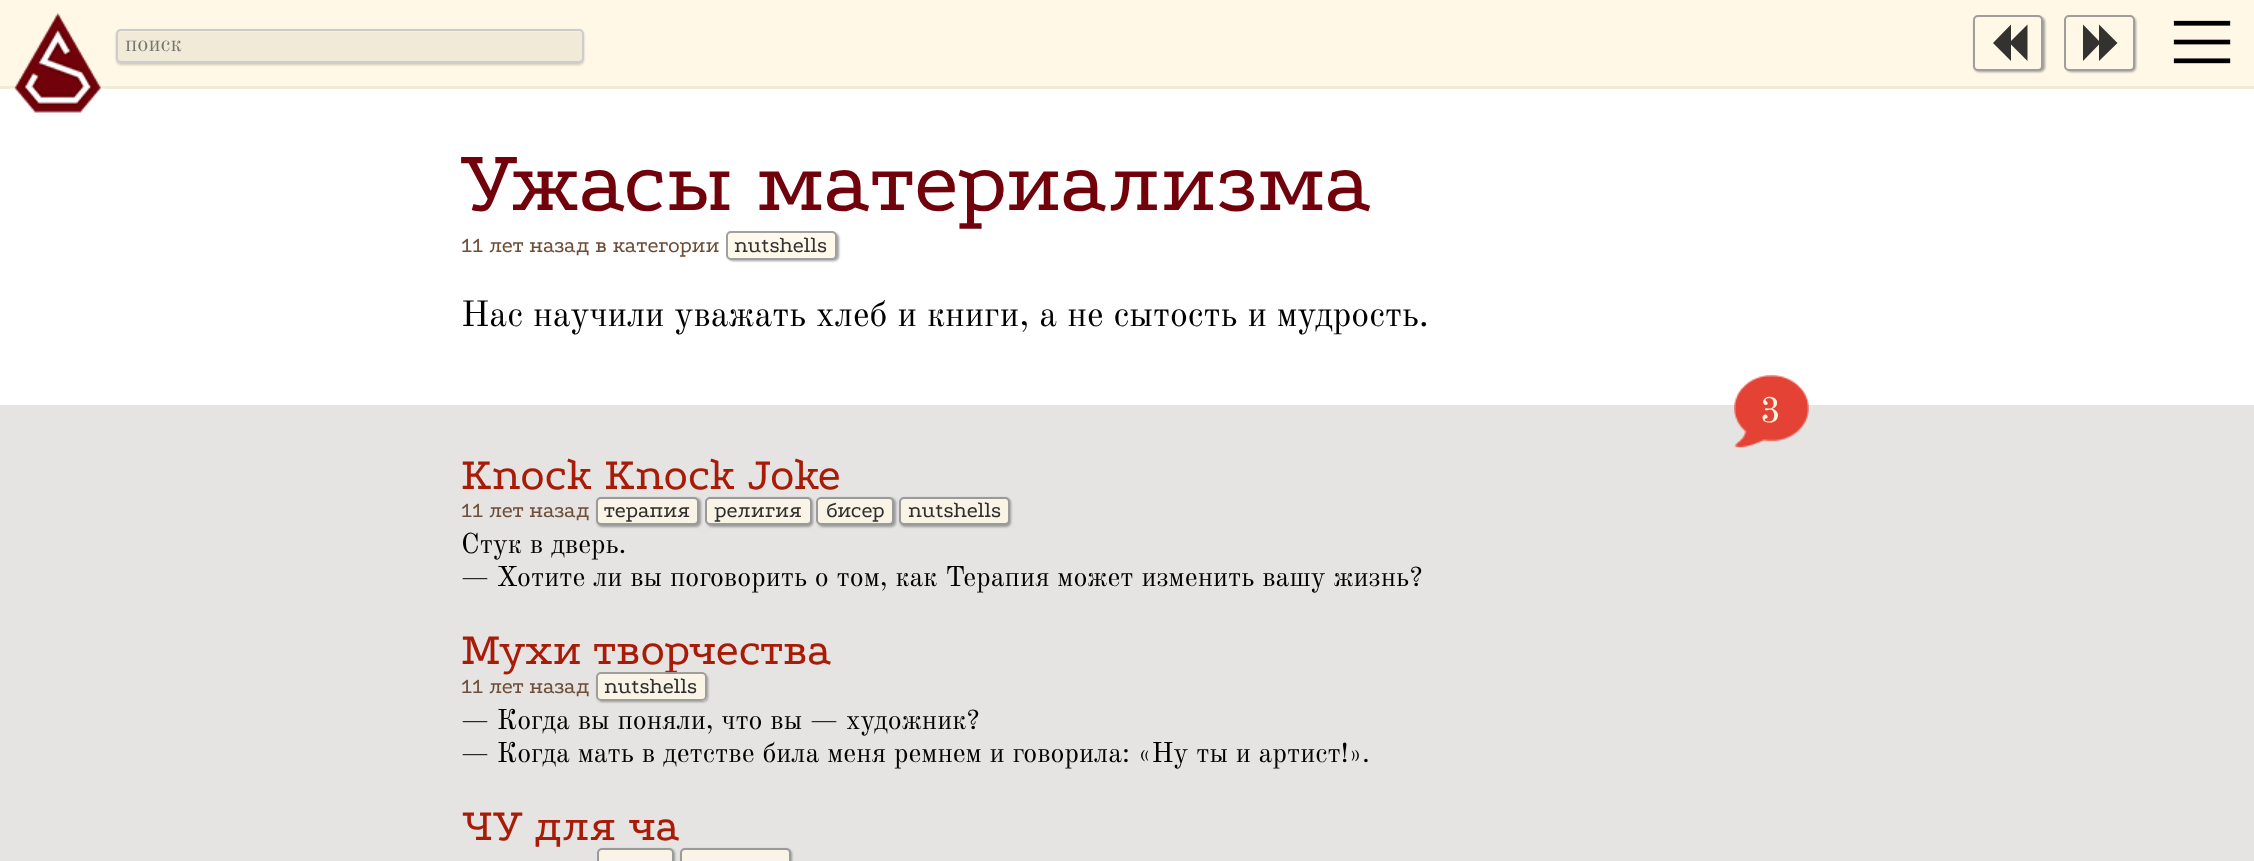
<svg xmlns="http://www.w3.org/2000/svg" xmlns:xlink="http://www.w3.org/1999/xlink" width="2254" height="861" viewBox="0 0 2254 861">
<style>
.cls-1{font:22.5px Old Standard TT;fill:#757575}
.cls-2{font:90px Podkova;fill:#71010b}
.cls-3{font:22.5px Podkova;fill:#6f4e37}
.cls-4{font:22.5px Podkova;fill:#333333}
.cls-5{font:36px Old Standard TT;fill:#000000}
.cls-6{font:36px Old Standard TT;fill:#f5f5dc}
.cls-7{font:46.75px Podkova;fill:#a81c07}
.cls-8{font:22.5px Podkova;fill:#2e2e2d}
.cls-9{font:28px Old Standard TT;fill:#000000}
</style>
<defs>
<clipPath id="clip1"><path d="M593 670H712V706H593ZM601 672H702C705 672 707 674 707 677V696C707 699 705 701 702 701H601C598 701 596 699 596 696V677C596 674 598 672 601 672Z" clip-rule="evenodd"/></clipPath>
</defs>
<rect width="100%" height="100%" fill="#ffffff"/>
<rect fill="#fff8e7" x="0" y="0" width="2254" height="86"/>
<rect fill="#f0ead6" x="0" y="86" width="2254" height="3"/>
<image xlink:href="image0.png" x="10" y="13" width="95" height="100"/>
<rect fill="#646464" fill-opacity="0.3" filter="blur(1px)" x="116" y="30" width="468" height="35" rx="5"/>
<rect fill="#f0ead6" x="116" y="29" width="468" height="34" rx="5"/>
<path fill="#f5f0e2" d="M120 32H579C581 32 582 33 582 34V33C582 31 581 30 579 30H120C118 30 117 31 117 33V34C117 33 118 32 120 32Z"/>
<rect fill="none" stroke="#cccccc" stroke-width="2" x="117" y="30" width="466" height="32" rx="4"/>
<rect fill="#a09e9b" filter="blur(1px)" x="1974" y="17" width="71" height="55" rx="5"/>
<rect fill="#fff8e7" stroke="#a09e9b" stroke-width="2" x="1974" y="16" width="68" height="54" rx="4"/>
<path fill="#33322e" d="M2011 24.5V41L2027.5 24.5V61L2011 44.5V61L1993 43Z"/>
<rect fill="#a09e9b" filter="blur(1px)" x="2066" y="17" width="70" height="55" rx="5"/>
<rect fill="#fff8e7" stroke="#a09e9b" stroke-width="2" x="2065" y="16" width="69" height="54" rx="4"/>
<path fill="#33322e" d="M2099 61V44.5L2083 61V24.5L2099 41V24.5L2117.5 43Z"/>
<image xlink:href="image1.png" x="2173" y="20" width="58" height="44"/>
<rect fill="#a0a0a0" filter="blur(1px)" x="728" y="233" width="111" height="28" rx="5"/>
<rect fill="#fff9ec" stroke="#a0a0a0" stroke-width="2" x="727" y="232" width="109" height="27" rx="4"/>
<rect fill="#e5e4e2" x="0" y="405" width="2254" height="456"/>
<image xlink:href="image2.png" x="1734" y="375" width="75" height="73"/>
<rect fill="#9b9a9a" filter="blur(1px)" x="597" y="498" width="104" height="29" rx="5"/>
<rect fill="#faf4e6" stroke="#9b9a9a" stroke-width="2" x="597" y="498" width="101" height="26" rx="4"/>
<rect fill="#9b9a9a" filter="blur(1px)" x="707" y="498" width="106" height="29" rx="5"/>
<rect fill="#faf4e6" stroke="#9b9a9a" stroke-width="2" x="706" y="498" width="105" height="26" rx="4"/>
<rect fill="#9b9a9a" filter="blur(1px)" x="818" y="498" width="78" height="29" rx="5"/>
<rect fill="#faf4e6" stroke="#9b9a9a" stroke-width="2" x="817" y="498" width="76" height="26" rx="4"/>
<rect fill="#9b9a9a" filter="blur(1px)" x="900" y="498" width="111" height="29" rx="5"/>
<rect fill="#faf4e6" stroke="#9b9a9a" stroke-width="2" x="900" y="498" width="109" height="26" rx="4"/>
<g clip-path="url(#clip1)">
<rect fill="#9b9a9a" filter="blur(1px)" x="597" y="674" width="111" height="28" rx="5"/>
</g>
<rect fill="#9b9a9a" filter="blur(1px)" x="599" y="849" width="76" height="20" rx="5"/>
<rect fill="#9b9a9a" filter="blur(1px)" x="681" y="849" width="111" height="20" rx="5"/>
<rect fill="#faf4e6" stroke="#9b9a9a" stroke-width="2" x="598" y="849" width="75" height="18" rx="4"/>
<rect fill="#faf4e6" stroke="#9b9a9a" stroke-width="2" x="681" y="849" width="109" height="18" rx="4"/>
<text class="cls-1" x="125" y="51">поиск</text>
<text class="cls-2" x="461" y="210">Ужасы материализма</text>
<text class="cls-3" x="461" y="252">11 лет назад в категории</text>
<text class="cls-4" x="734" y="252">nutshells</text>
<text class="cls-5" x="461" y="326">Нас научили уважать хлеб и книги, а не сытость и мудрость.</text>
<text class="cls-6" x="1760" y="422">3</text>
<text class="cls-7" x="461" y="489">Knock Knock Joke</text>
<text class="cls-3" x="461" y="517">11 лет назад</text>
<text class="cls-8" x="604" y="517">терапия</text>
<text class="cls-8" x="714" y="517">религия</text>
<text class="cls-8" x="826" y="517">бисер</text>
<text class="cls-8" x="908" y="517">nutshells</text>
<text class="cls-9"><tspan x="461" y="553">Стук в дверь.</tspan><tspan x="461" y="586">— Хотите ли вы поговорить о том, как Терапия может изменить вашу жизнь?</tspan></text>
<text class="cls-7" x="461" y="664">Мухи творчества</text>
<text class="cls-3" x="461" y="693">11 лет назад</text>
<rect fill="#fff8e7" fill-opacity="0.8" x="596" y="672" width="111" height="29" rx="5"/>
<rect fill="none" stroke="#888888" stroke-opacity="0.8" stroke-width="2" x="597" y="673" width="109" height="27" rx="4"/>
<text class="cls-8" x="604" y="693">nutshells</text>
<text class="cls-9"><tspan x="461" y="729">— Когда вы поняли, что вы — художник?</tspan><tspan x="461" y="762">— Когда мать в детстве била меня ремнем и говорила:</tspan></text>
<text class="cls-9" x="1138" y="762">«Ну ты и артист!».</text>
<text class="cls-7" x="461" y="840">ЧУ для ча</text>
</svg>
